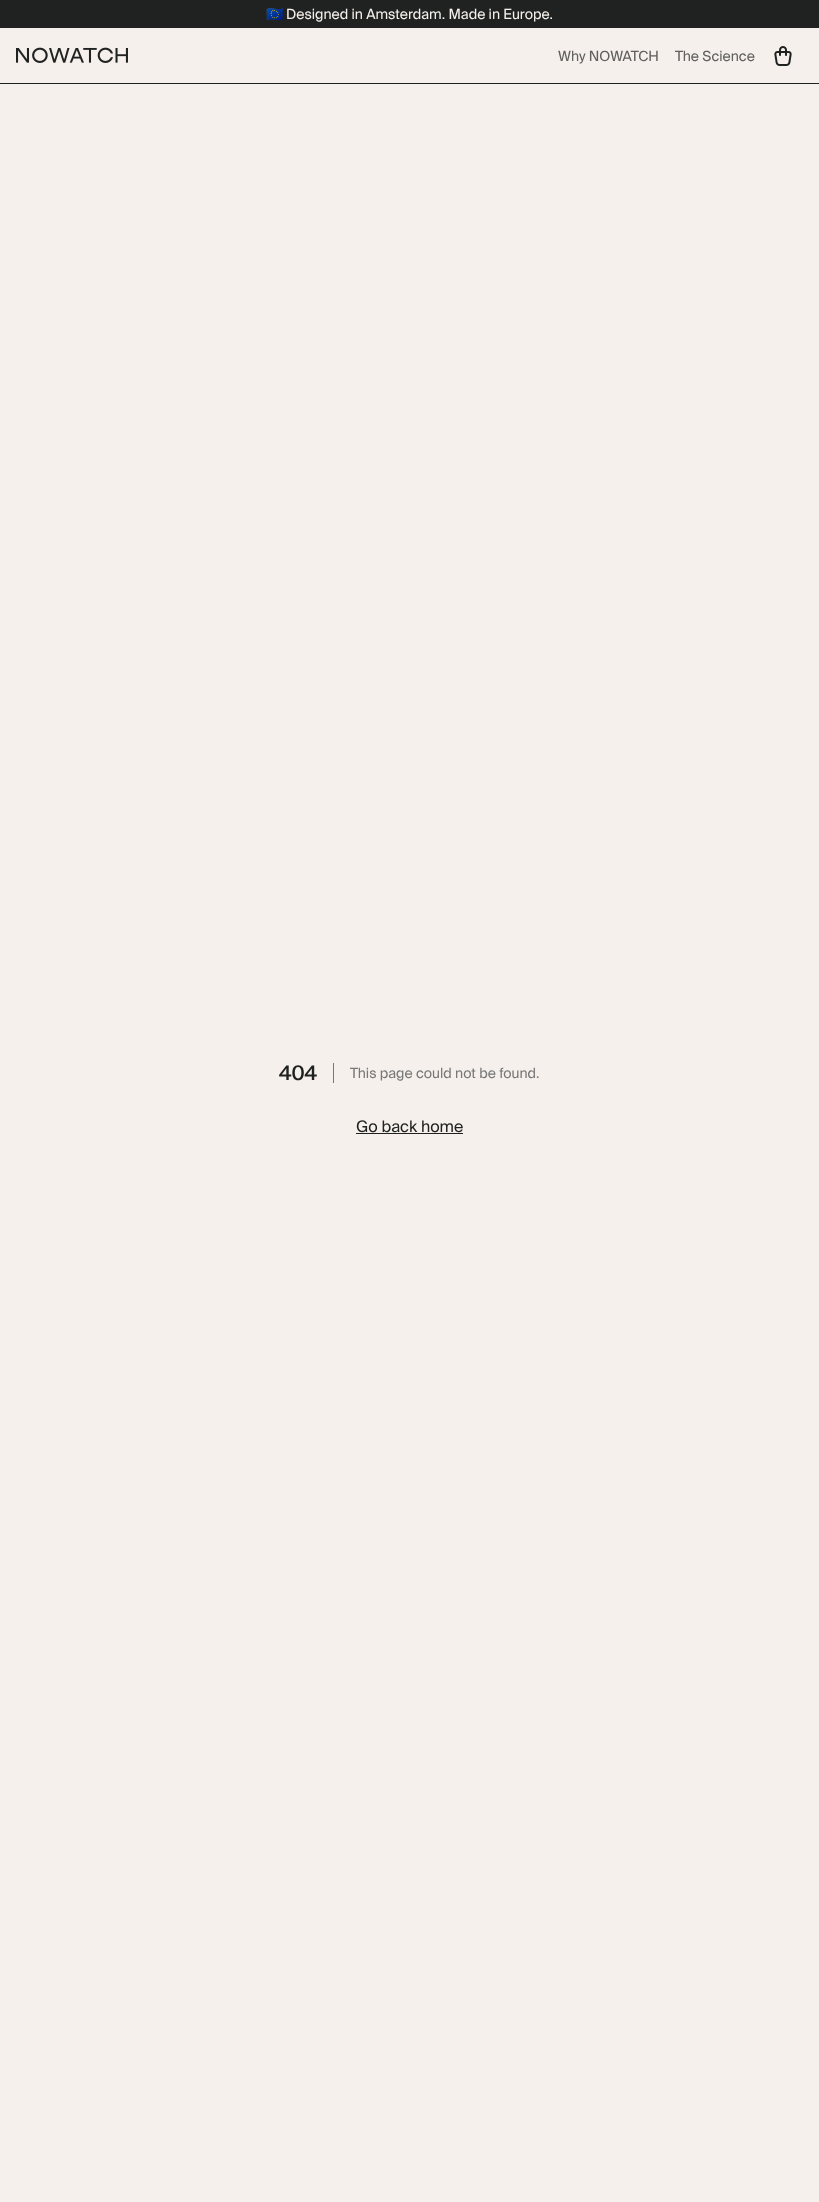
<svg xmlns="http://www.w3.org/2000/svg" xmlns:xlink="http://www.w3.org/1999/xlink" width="819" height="2202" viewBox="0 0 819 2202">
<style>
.cls-1{font:14px Noto Color Emoji;fill:#f5f0eb}
.cls-2{font:14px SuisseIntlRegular;fill:#f5f0eb}
.cls-3{font:14px SuisseIntlRegular;fill:#60605e}
.cls-4{font:500 20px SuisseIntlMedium;fill:#202222}
.cls-5{font:14px SuisseIntlRegular;fill:#787878}
.cls-6{font:16px SuisseIntlRegular;fill:#202222}
</style>
<rect width="100%" height="100%" fill="#f5f0eb"/>
<rect fill="#202222" x="0" y="0" width="819" height="28"/>
<rect fill="#202222" x="0" y="83" width="819" height="1"/>
<image xlink:href="image0.png" x="16" y="47" width="112" height="16"/>
<image xlink:href="image1.png" x="774" y="46" width="18" height="20"/>
<rect fill="#787878" x="333" y="1063" width="1" height="20"/>
<rect fill="#202222" x="356" y="1133" width="107" height="1"/>
<text class="cls-1" x="266" y="19">🇪🇺</text>
<text class="cls-2" x="286" y="19">Designed in Amsterdam. Made in Europe.</text>
<text class="cls-3" x="558" y="61">Why NOWATCH</text>
<text class="cls-3" x="675" y="61">The Science</text>
<text class="cls-4" x="279" y="1080">404</text>
<text class="cls-5" x="350" y="1078">This page could not be found.</text>
<text class="cls-6" x="356" y="1132">Go back home</text>
</svg>
